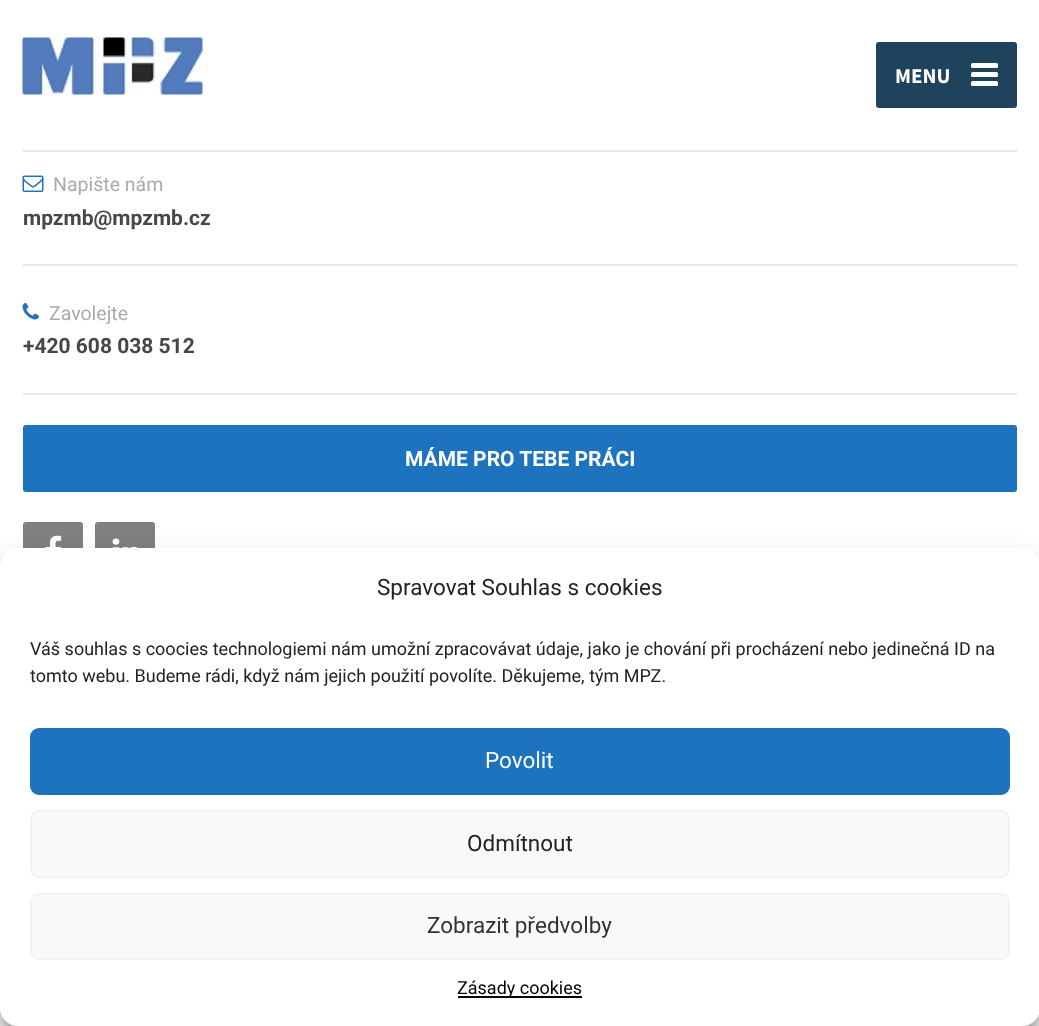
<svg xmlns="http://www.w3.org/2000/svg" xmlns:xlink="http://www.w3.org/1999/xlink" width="1039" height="1026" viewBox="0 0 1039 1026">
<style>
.cls-1{font:bold 21px Source Sans Pro;fill:#ffffff}
.cls-2{font:19.5px Roboto;fill:#aaaaaa}
.cls-3{font:bold 21px Roboto;fill:#474747}
.cls-4{font:bold 21px Roboto;fill:#ffffff}
.cls-5{font:22.5px Roboto;fill:#222222}
.cls-6{font:18px Roboto;fill:#222222}
.cls-7{font:22.5px Roboto;fill:#ffffff}
.cls-8{font:22.5px Roboto;fill:#333333}
.cls-9{font:18px Roboto;fill:#000000}
</style>
<rect width="100%" height="100%" fill="#ffffff"/>
<rect fill="#e6e6e6" x="23" y="150" width="994" height="2"/>
<image xlink:href="image0.png" x="22" y="37" width="181" height="58"/>
<rect fill="#1f425d" x="876" y="42" width="141" height="66" rx="3"/>
<rect fill="#ffffff" x="971" y="63" width="27" height="5" rx="1.5"/>
<rect fill="#ffffff" x="971" y="72" width="27" height="5" rx="1.5"/>
<rect fill="#ffffff" x="971" y="81" width="27" height="5" rx="1.5"/>
<rect fill="#e6e6e6" x="23" y="264" width="994" height="2"/>
<image xlink:href="image1.png" x="22" y="175" width="22" height="17"/>
<rect fill="#e6e6e6" x="23" y="393" width="994" height="2"/>
<image xlink:href="image2.png" x="22" y="303" width="17" height="17"/>
<rect fill="#1e73be" stroke="#1e73be" stroke-width="2" x="24" y="426" width="992" height="65" rx="2"/>
<rect fill="#808080" x="23" y="522" width="60" height="60" rx="3"/>
<image xlink:href="image3.png" x="45" y="535" width="17" height="13"/>
<rect fill="#808080" x="95" y="522" width="60" height="60" rx="3"/>
<image xlink:href="image4.png" x="112" y="538" width="26" height="10"/>
<rect fill="#000000" fill-opacity="0.23" filter="blur(4.5px)" x="0" y="557" width="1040" height="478" rx="18"/>
<rect fill="#000000" fill-opacity="0.19" filter="blur(15px)" x="0" y="563" width="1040" height="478" rx="18"/>
<rect fill="#ffffff" x="0" y="548" width="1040" height="478" rx="18"/>
<rect fill="#1e73be" stroke="#1e73be" stroke-width="2" x="31" y="729" width="978" height="65" rx="8"/>
<rect fill="#f9f9f9" stroke="#f2f2f2" stroke-width="2" x="31" y="811" width="978" height="66" rx="8"/>
<rect fill="#f9f9f9" stroke="#f2f2f2" stroke-width="2" x="31" y="894" width="978" height="65" rx="8"/>
<rect fill="#000000" x="458" y="996" width="124" height="2"/>
<text class="cls-1" x="895" y="83">MENU</text>
<text class="cls-2" x="53" y="191">Napište nám</text>
<text class="cls-3" x="23" y="225">mpzmb@mpzmb.cz</text>
<text class="cls-2" x="49" y="320">Zavolejte</text>
<text class="cls-3" x="23" y="353">+420 608 038 512</text>
<text class="cls-4" x="405" y="466">MÁME PRO TEBE PRÁCI</text>
<text class="cls-5" x="377" y="595">Spravovat Souhlas s cookies</text>
<text class="cls-6"><tspan x="30" y="655">Váš souhlas s coocies technologiemi nám umožní zpracovávat údaje, jako je chování při procházení nebo jedinečná ID na</tspan><tspan x="30" y="682">tomto webu. Budeme rádi, když nám jejich použití povolíte. Děkujeme, tým MPZ.</tspan></text>
<text class="cls-7" x="485" y="768">Povolit</text>
<text class="cls-5" x="467" y="851">Odmítnout</text>
<text class="cls-8" x="427" y="933">Zobrazit předvolby</text>
<text class="cls-9" x="457" y="994">Zásady cookies</text>
</svg>
